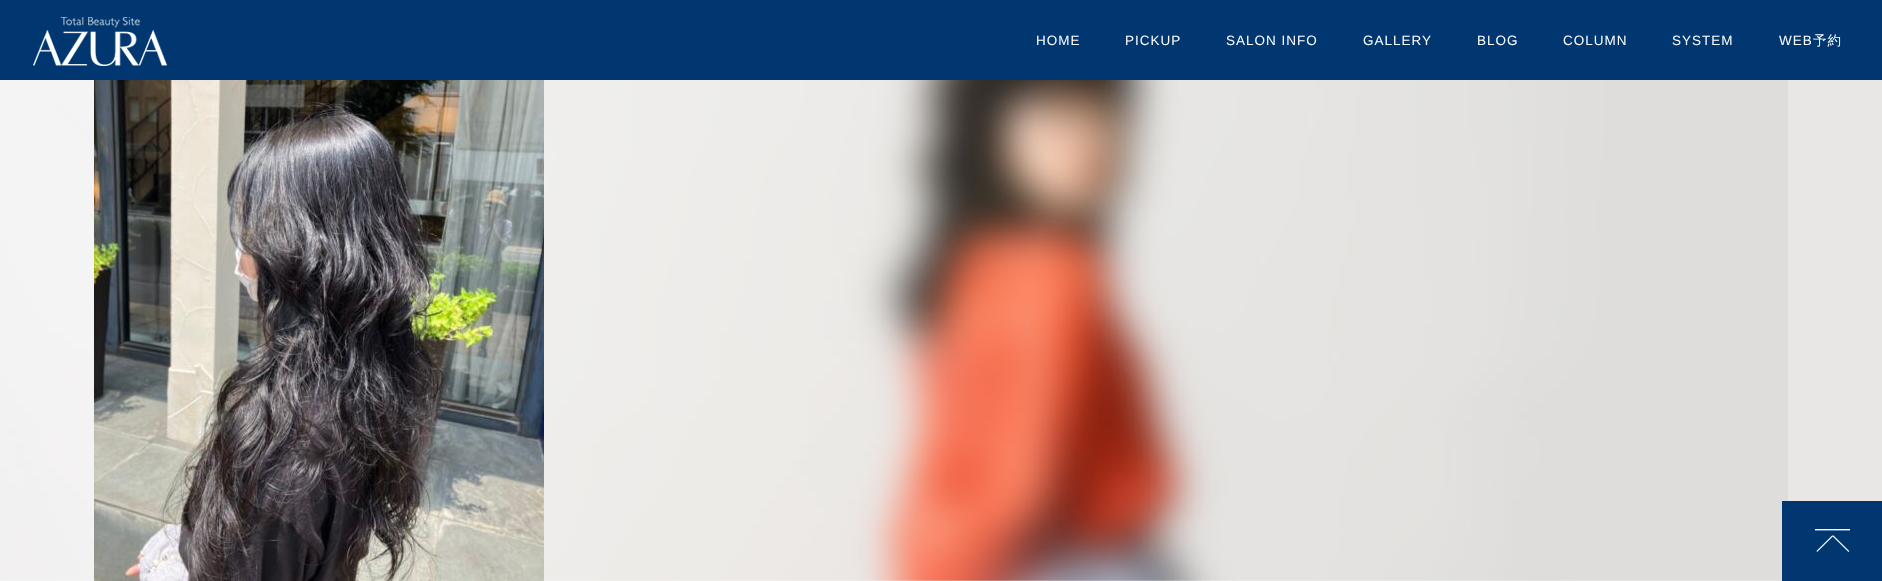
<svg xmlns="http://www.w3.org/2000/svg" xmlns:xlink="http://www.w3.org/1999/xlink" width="1882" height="581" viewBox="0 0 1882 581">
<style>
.cls-1{font:13.5px Liberation Sans;letter-spacing:1px;fill:#ffffff}
.cls-2{font:500 13.5px WenQuanYi Zen Hei;letter-spacing:1px;fill:#ffffff}
</style>
<rect width="100%" height="100%" fill="#ffffff"/>
<image xlink:href="image0.png" x="0" y="80" width="1882" height="501"/>
<rect fill="#003770" x="0" y="0" width="1882" height="80"/>
<image xlink:href="image1.png" x="33" y="15" width="134" height="51"/>
<rect fill="#ffffff" fill-opacity="0.3" x="0" y="80" width="94" height="501"/>
<image xlink:href="image2.png" x="94" y="80" width="450" height="501"/>
<rect fill="#ffffff" fill-opacity="0.3" x="1788" y="80" width="94" height="421"/>
<rect fill="#003770" x="1782" y="501" width="100" height="80"/>
<image xlink:href="image3.png" x="1815" y="529" width="35" height="23"/>
<text class="cls-1" x="1036" y="45">HOME</text>
<text class="cls-1" x="1125" y="45">PICKUP</text>
<text class="cls-1" x="1226" y="45">SALON INFO</text>
<text class="cls-1" x="1363" y="45">GALLERY</text>
<text class="cls-1" x="1477" y="45">BLOG</text>
<text class="cls-1" x="1563" y="45">COLUMN</text>
<text class="cls-1" x="1672" y="45">SYSTEM</text>
<text class="cls-1" x="1779" y="45">WEB</text>
<text class="cls-2" x="1813" y="45">予約</text>
</svg>
